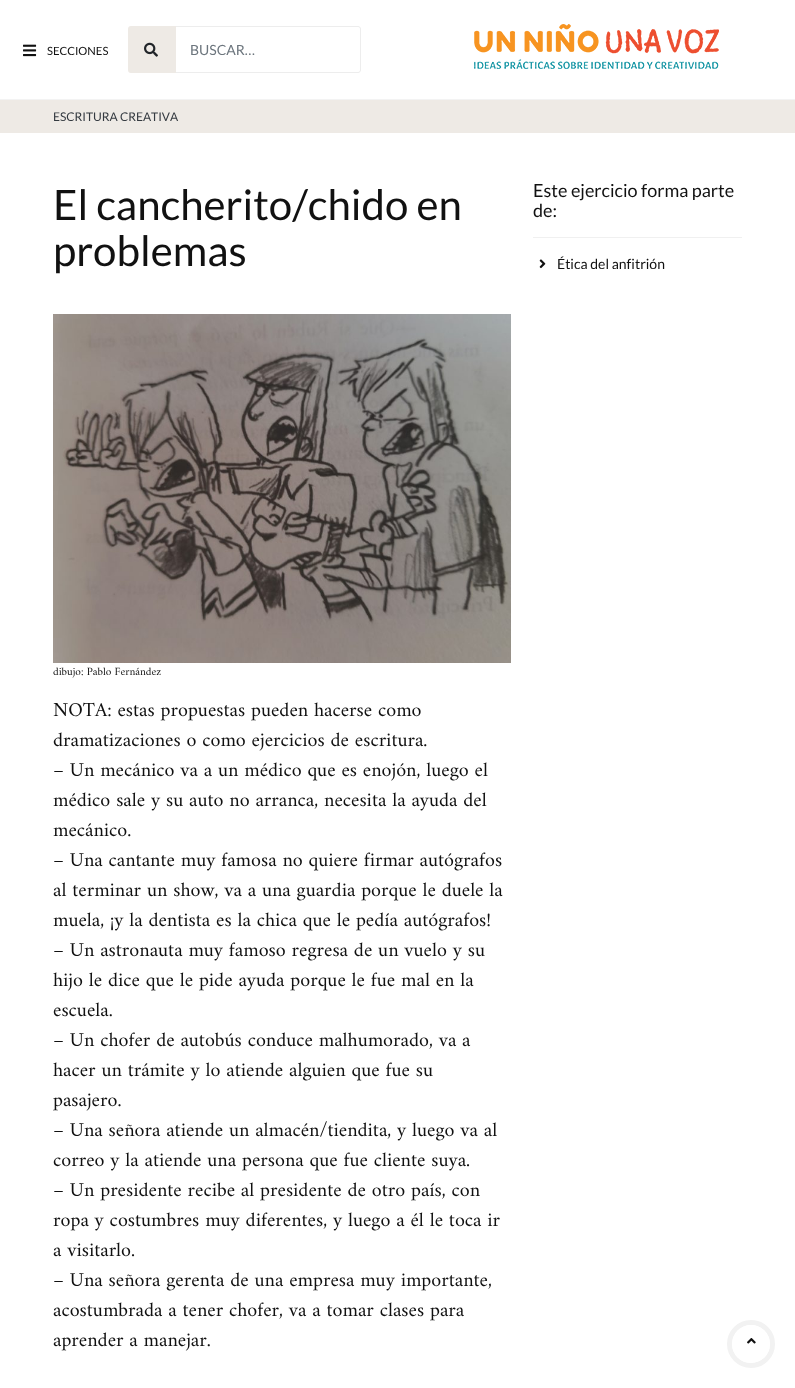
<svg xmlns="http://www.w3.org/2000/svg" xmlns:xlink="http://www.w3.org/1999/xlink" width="795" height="1388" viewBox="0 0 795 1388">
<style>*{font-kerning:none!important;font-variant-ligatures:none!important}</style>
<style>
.cls-1{font:11.25px Lato;fill:#111111}
.cls-2{font:14px Lato;fill:#6c757d}
.cls-3{font:12px Lato;fill:#343a40}
.cls-4{font:42px Lato;fill:#111111}
.cls-5{font:11.25px Amiri;fill:#111111}
.cls-6{font:20px Amiri;fill:#111111}
.cls-7{font:18px Lato;fill:#111111}
.cls-8{font:14px Lato;fill:#111111}
</style>
<rect width="100%" height="100%" fill="#ffffff"/>
<rect fill="#f3f3f3" x="0" y="99" width="795" height="1"/>
<image xlink:href="image0.png" x="23" y="44" width="14" height="13"/>
<path fill="none" stroke="#ededed" d="M175.5 26.5H358C359.5 26.5 360.5 27.5 360.5 29V70C360.5 71.5 359.5 72.5 358 72.5H175.5Z"/>
<path fill="#eeeae5" stroke="#eeeae5" stroke-width="2" d="M131 27H175V72H131C130 72 129 71 129 70V29C129 28 130 27 131 27Z"/>
<image xlink:href="image1.png" x="144" y="42" width="14" height="15"/>
<image xlink:href="image2.png" x="474" y="24" width="245" height="45"/>
<rect fill="#eeeae5" x="0" y="100" width="795" height="33"/>
<image xlink:href="image3.png" x="53" y="314" width="458" height="349"/>
<rect fill="#f0f0f0" x="533" y="237" width="209" height="1"/>
<image xlink:href="image4.png" x="539" y="259" width="7" height="10"/>
<circle fill="none" stroke="#f2f2f2" stroke-width="5" cx="751" cy="1344" r="21.5"/>
<circle fill="#ffffff" fill-opacity="0.9" cx="751" cy="1344" r="19"/>
<image xlink:href="image5.png" x="747" y="1338" width="9" height="6"/>
<text class="cls-1" x="47" y="55">SECCIONES</text>
<text class="cls-2" x="190" y="55">BUSCAR…</text>
<text class="cls-3" x="53" y="121">ESCRITURA CREATIVA</text>
<text class="cls-4"><tspan x="53" y="220">El cancherito/chido en</tspan><tspan x="53" y="266">problemas</tspan></text>
<text class="cls-5" x="53" y="675">dibujo: Pablo Fernández</text>
<text class="cls-6"><tspan x="53" y="716">NOTA: estas propuestas pueden hacerse como</tspan><tspan x="53" y="746">dramatizaciones o como ejercicios de escritura.</tspan><tspan x="53" y="776">– Un mecánico va a un médico que es enojón, luego el</tspan><tspan x="53" y="806">médico sale y su auto no arranca, necesita la ayuda del</tspan><tspan x="53" y="836">mecánico.</tspan><tspan x="53" y="866">– Una cantante muy famosa no quiere firmar autógrafos</tspan><tspan x="53" y="896">al terminar un show, va a una guardia porque le duele la</tspan><tspan x="53" y="926">muela, ¡y la dentista es la chica que le pedía autógrafos!</tspan><tspan x="53" y="956">– Un astronauta muy famoso regresa de un vuelo y su</tspan><tspan x="53" y="986">hijo le dice que le pide ayuda porque le fue mal en la</tspan><tspan x="53" y="1016">escuela.</tspan><tspan x="53" y="1046">– Un chofer de autobús conduce malhumorado, va a</tspan><tspan x="53" y="1076">hacer un trámite y lo atiende alguien que fue su</tspan><tspan x="53" y="1106">pasajero.</tspan><tspan x="53" y="1136">– Una señora atiende un almacén/tiendita, y luego va al</tspan><tspan x="53" y="1166">correo y la atiende una persona que fue cliente suya.</tspan><tspan x="53" y="1196">– Un presidente recibe al presidente de otro país, con</tspan><tspan x="53" y="1226">ropa y costumbres muy diferentes, y luego a él le toca ir</tspan><tspan x="53" y="1256">a visitarlo.</tspan><tspan x="53" y="1286">– Una señora gerenta de una empresa muy importante,</tspan><tspan x="53" y="1316">acostumbrada a tener chofer, va a tomar clases para</tspan><tspan x="53" y="1346">aprender a manejar.</tspan></text>
<text class="cls-7"><tspan x="533" y="197">Este ejercicio forma parte</tspan><tspan x="533" y="217">de:</tspan></text>
<text class="cls-8" x="557" y="269">Ética del anfitrión</text>
</svg>
